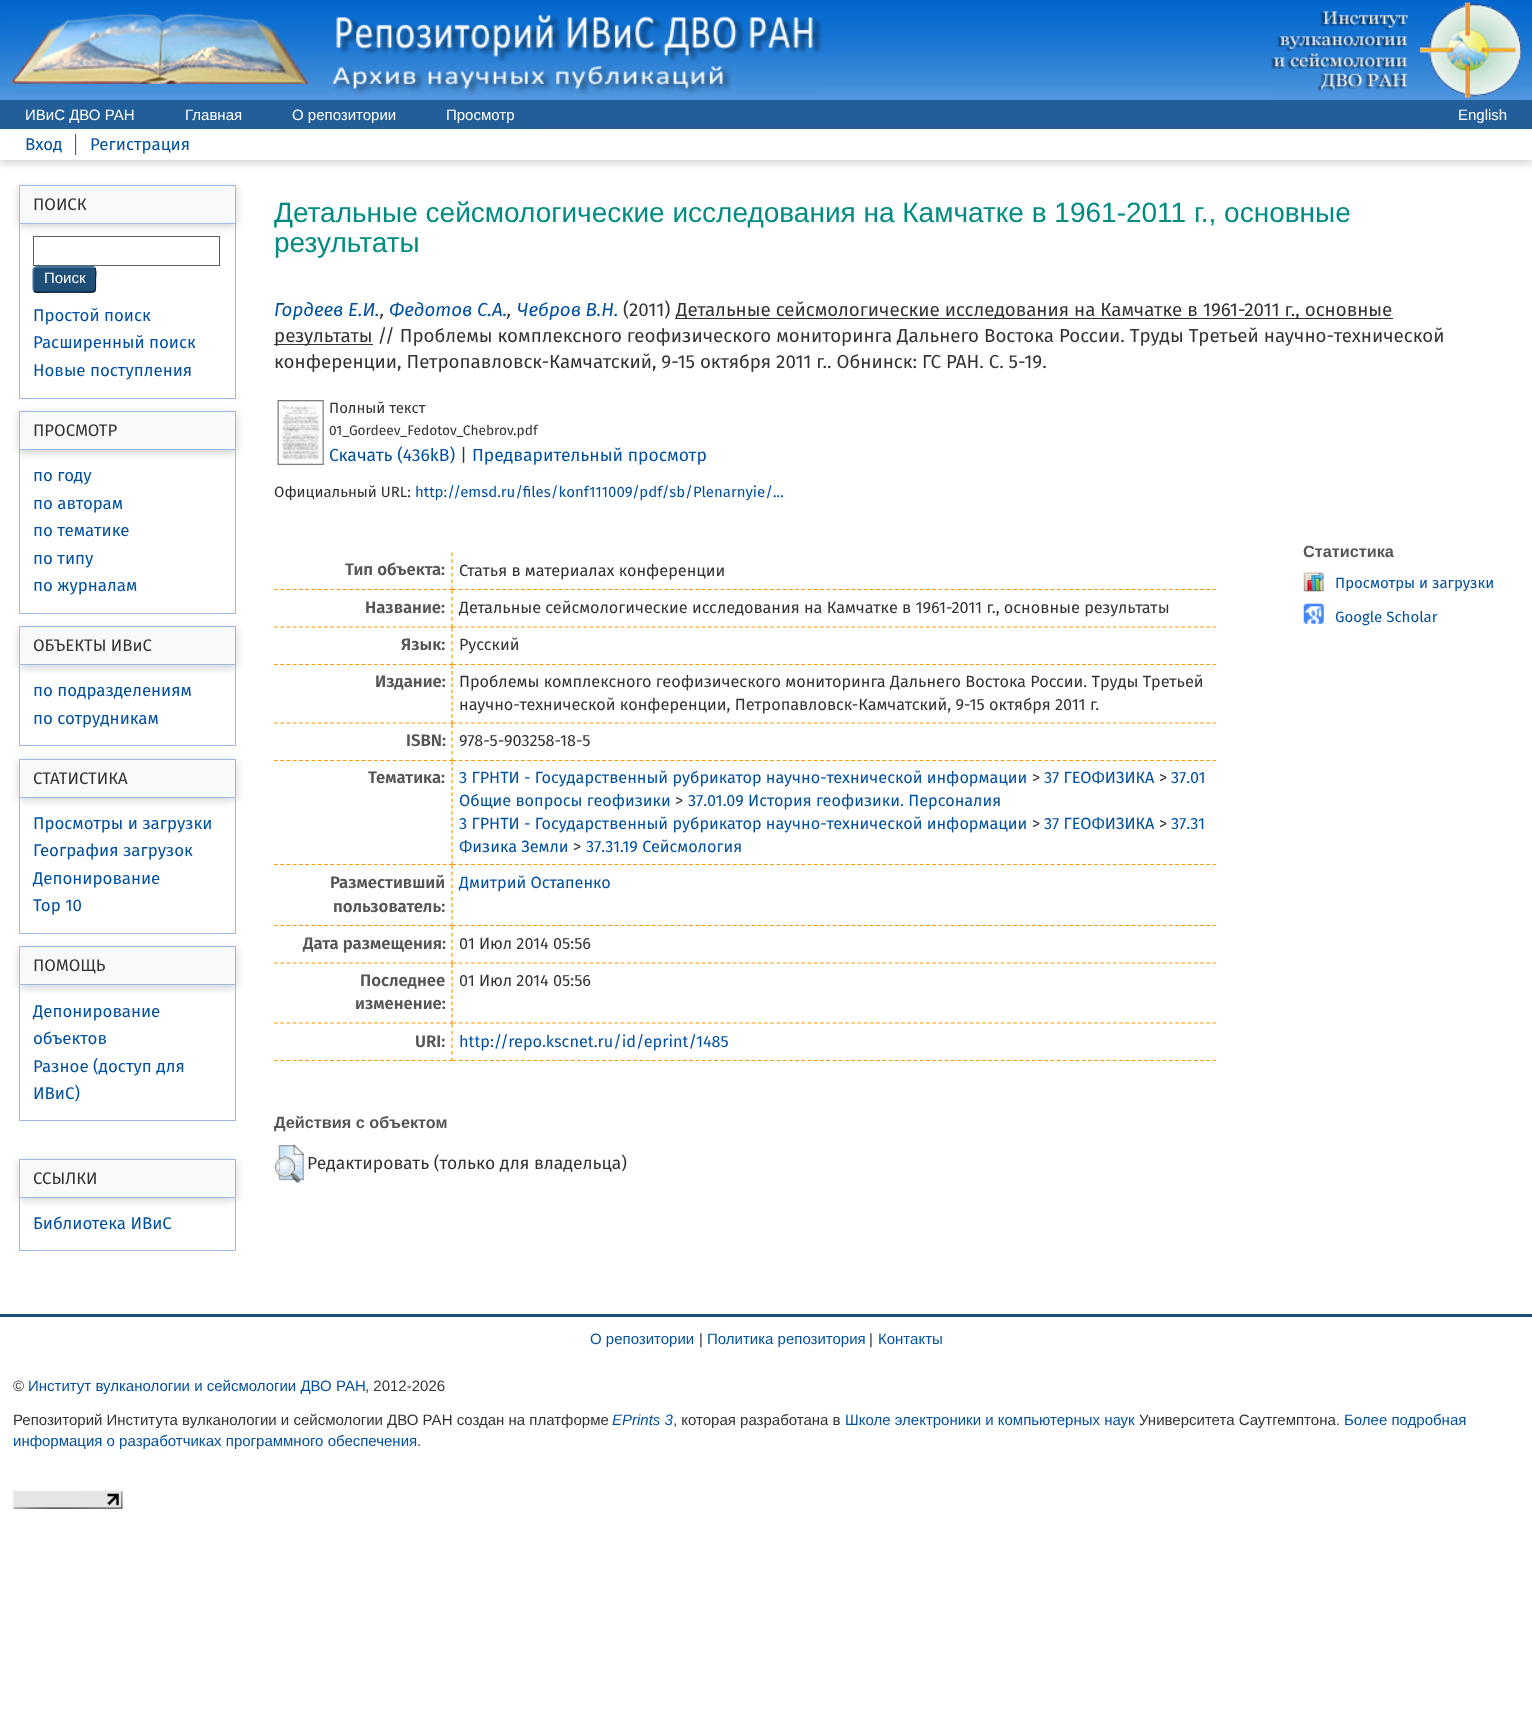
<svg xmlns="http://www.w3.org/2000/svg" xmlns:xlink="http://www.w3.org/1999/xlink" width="1532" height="1720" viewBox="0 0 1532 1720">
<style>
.cls-1{font:15px Liberation Sans;fill:#ffffff}
.cls-2{font:16.9px Fira Sans;fill:#00509f}
.cls-3{font:16.75px Fira Sans;fill:#333333}
.cls-4{font:28px Liberation Sans;fill:#008b83}
.cls-5{font:italic 18.75px Fira Sans;fill:#00509f}
.cls-6{font:italic 18.75px Fira Sans;fill:#333333}
.cls-7{font:18.75px Fira Sans;fill:#333333}
.cls-8{font:15px Fira Sans;fill:#333333}
.cls-9{font:13.75px Fira Sans;fill:#333333}
.cls-10{font:17.5px Fira Sans;fill:#00509f}
.cls-11{font:17.5px Fira Sans;fill:#333333}
.cls-12{font:15px Fira Sans;fill:#00509f}
.cls-13{font:600 16.75px Fira Sans;fill:#555555}
.cls-14{font:16.25px Fira Sans;fill:#333333}
.cls-15{font:16.25px Fira Sans;fill:#00509f}
.cls-16{font:bold 16.25px Liberation Sans;fill:#555555}
.cls-17{font:15px Liberation Sans;fill:#00509f}
.cls-18{font:15px Liberation Sans;fill:#333333}
.cls-19{font:italic 15px Liberation Sans;fill:#00509f}
</style>
<rect width="100%" height="100%" fill="#ffffff"/>
<rect fill="#225e99" x="0" y="100" width="1532" height="29"/>
<image xlink:href="image0.png" x="0" y="0" width="1532" height="100"/>
<image xlink:href="image1.png" x="10" y="13" width="812" height="83"/>
<image xlink:href="image2.png" x="1270" y="2" width="252" height="97"/>
<rect fill="#646464" fill-opacity="0.3" filter="blur(4px)" x="0" y="131" width="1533" height="32"/>
<rect fill="#225e99" x="0" y="127" width="539" height="2"/>
<rect fill="#225e99" x="1434" y="127" width="98" height="2"/>
<rect fill="#ffffff" x="0" y="129" width="1532" height="31"/>
<rect fill="#606060" x="75" y="134" width="1" height="21"/>
<rect fill="#e8e8e8" x="76" y="134" width="1" height="21"/>
<rect fill="#646464" fill-opacity="0.3" filter="blur(4px)" x="19" y="188" width="217" height="38"/>
<rect fill="#f8f9fa" stroke="#99bbe8" x="19.5" y="185.5" width="216" height="38"/>
<rect fill="#99bbe8" x="235" y="224" width="1" height="175"/>
<rect fill="#99bbe8" x="19" y="398" width="217" height="1"/>
<rect fill="#99bbe8" x="19" y="224" width="1" height="175"/>
<rect fill="none" stroke="#606060" x="33.5" y="236.5" width="186" height="29"/>
<rect fill="#1f4f76" x="33" y="266" width="63" height="27" rx="4"/>
<path fill="none" stroke="#5b97c7" stroke-width="1.2" d="M34 268L36 267H93L94.5 268"/>
<path fill="none" stroke="#0d2131" stroke-width="1.2" d="M94.5 268C97 270 95.5 277 95.5 279.5C95.5 293.5 97.5 292 83 292H45.5C44.5 292 36.5 293.5 34 291"/>
<path fill="none" stroke="#5287b3" stroke-width="1.2" d="M34 291C33.5 290.5 33 289.5 33 289V270C33 269 33.5 268.5 34 268"/>
<rect fill="#646464" fill-opacity="0.3" filter="blur(4px)" x="19" y="414" width="217" height="39"/>
<rect fill="#f8f9fa" stroke="#99bbe8" x="19.5" y="411.5" width="216" height="38"/>
<rect fill="#99bbe8" x="235" y="450" width="1" height="164"/>
<rect fill="#99bbe8" x="19" y="613" width="217" height="1"/>
<rect fill="#99bbe8" x="19" y="450" width="1" height="164"/>
<rect fill="#646464" fill-opacity="0.3" filter="blur(4px)" x="19" y="629" width="217" height="39"/>
<rect fill="#f8f9fa" stroke="#99bbe8" x="19.5" y="626.5" width="216" height="38"/>
<rect fill="#99bbe8" x="235" y="665" width="1" height="81"/>
<rect fill="#99bbe8" x="19" y="745" width="217" height="1"/>
<rect fill="#99bbe8" x="19" y="665" width="1" height="81"/>
<rect fill="#646464" fill-opacity="0.3" filter="blur(4px)" x="19" y="761" width="217" height="39"/>
<rect fill="#f8f9fa" stroke="#99bbe8" x="19.5" y="759.5" width="216" height="38"/>
<rect fill="#99bbe8" x="235" y="798" width="1" height="136"/>
<rect fill="#99bbe8" x="19" y="933" width="217" height="1"/>
<rect fill="#99bbe8" x="19" y="798" width="1" height="136"/>
<rect fill="#646464" fill-opacity="0.3" filter="blur(4px)" x="19" y="949" width="217" height="39"/>
<rect fill="#f8f9fa" stroke="#99bbe8" x="19.5" y="946.5" width="216" height="38"/>
<rect fill="#99bbe8" x="235" y="985" width="1" height="136"/>
<rect fill="#99bbe8" x="19" y="1120" width="217" height="1"/>
<rect fill="#99bbe8" x="19" y="985" width="1" height="136"/>
<rect fill="#646464" fill-opacity="0.3" filter="blur(4px)" x="19" y="1161" width="217" height="39"/>
<rect fill="#f8f9fa" stroke="#99bbe8" x="19.5" y="1159.5" width="216" height="38"/>
<rect fill="#99bbe8" x="235" y="1198" width="1" height="53"/>
<rect fill="#99bbe8" x="19" y="1250" width="217" height="1"/>
<rect fill="#99bbe8" x="19" y="1198" width="1" height="53"/>
<rect fill="#333333" x="675" y="318" width="718" height="1"/>
<rect fill="#333333" x="274" y="344" width="99" height="1"/>
<image xlink:href="image3.png" x="277" y="400" width="47" height="65"/>
<path fill="none" stroke="#ff9900" stroke-width="1.2" stroke-dasharray="3.75 3" d="M452 552.5V590"/>
<path fill="none" stroke="#ff9900" stroke-width="1.2" stroke-dasharray="3.75 2.5" d="M274 589.5H452.5"/>
<path fill="none" stroke="#ff9900" stroke-width="1.2" stroke-dasharray="3.75 2.48" d="M452.5 589.5H1216"/>
<path fill="none" stroke="#ff9900" stroke-width="1.2" stroke-dasharray="3.75 3" d="M452 590V627.5"/>
<path fill="none" stroke="#ff9900" stroke-width="1.2" stroke-dasharray="3.75 2.5" d="M274 627H452.5"/>
<path fill="none" stroke="#ff9900" stroke-width="1.2" stroke-dasharray="3.75 2.48" d="M452.5 627H1216"/>
<path fill="none" stroke="#ff9900" stroke-width="1.2" stroke-dasharray="3.75 3" d="M452 627.5V665"/>
<path fill="none" stroke="#ff9900" stroke-width="1.2" stroke-dasharray="3.75 2.5" d="M274 664.5H452.5"/>
<path fill="none" stroke="#ff9900" stroke-width="1.2" stroke-dasharray="3.75 2.48" d="M452.5 664.5H1216"/>
<path fill="none" stroke="#ff9900" stroke-width="1.2" stroke-dasharray="3.75 2.36" d="M452 665V724"/>
<path fill="none" stroke="#ff9900" stroke-width="1.2" stroke-dasharray="3.75 2.5" d="M274 723H452.5"/>
<path fill="none" stroke="#ff9900" stroke-width="1.2" stroke-dasharray="3.75 2.48" d="M452.5 723H1216"/>
<path fill="none" stroke="#ff9900" stroke-width="1.2" stroke-dasharray="3.75 3" d="M452 724V761"/>
<path fill="none" stroke="#ff9900" stroke-width="1.2" stroke-dasharray="3.75 2.5" d="M274 760.5H452.5"/>
<path fill="none" stroke="#ff9900" stroke-width="1.2" stroke-dasharray="3.75 2.48" d="M452.5 760.5H1216"/>
<path fill="none" stroke="#ff9900" stroke-width="1.2" stroke-dasharray="3.75 2.5" d="M452 761V865"/>
<path fill="none" stroke="#ff9900" stroke-width="1.2" stroke-dasharray="3.75 2.5" d="M274 864.5H452.5"/>
<path fill="none" stroke="#ff9900" stroke-width="1.2" stroke-dasharray="3.75 2.48" d="M452.5 864.5H1216"/>
<path fill="none" stroke="#ff9900" stroke-width="1.2" stroke-dasharray="3.75 2.64" d="M452 865V926"/>
<path fill="none" stroke="#ff9900" stroke-width="1.2" stroke-dasharray="3.75 2.5" d="M274 925.5H452.5"/>
<path fill="none" stroke="#ff9900" stroke-width="1.2" stroke-dasharray="3.75 2.48" d="M452.5 925.5H1216"/>
<path fill="none" stroke="#ff9900" stroke-width="1.2" stroke-dasharray="3.75 3" d="M452 926V964"/>
<path fill="none" stroke="#ff9900" stroke-width="1.2" stroke-dasharray="3.75 2.5" d="M274 963H452.5"/>
<path fill="none" stroke="#ff9900" stroke-width="1.2" stroke-dasharray="3.75 2.48" d="M452.5 963H1216"/>
<path fill="none" stroke="#ff9900" stroke-width="1.2" stroke-dasharray="3.75 2.5" d="M452 964V1024"/>
<path fill="none" stroke="#ff9900" stroke-width="1.2" stroke-dasharray="3.75 2.5" d="M274 1023H452.5"/>
<path fill="none" stroke="#ff9900" stroke-width="1.2" stroke-dasharray="3.75 2.48" d="M452.5 1023H1216"/>
<path fill="none" stroke="#ff9900" stroke-width="1.2" stroke-dasharray="3.75 3" d="M452 1024V1061"/>
<path fill="none" stroke="#ff9900" stroke-width="1.2" stroke-dasharray="3.75 2.5" d="M274 1060.5H452.5"/>
<path fill="none" stroke="#ff9900" stroke-width="1.2" stroke-dasharray="3.75 2.48" d="M452.5 1060.5H1216"/>
<image xlink:href="image4.png" x="275" y="1145" width="29" height="38"/>
<image xlink:href="image5.png" x="1303" y="572" width="21" height="20"/>
<image xlink:href="image6.png" x="1303" y="603" width="21" height="21"/>
<rect fill="#204f76" x="0" y="1314" width="1532" height="3"/>
<image xlink:href="image7.png" x="12" y="1490" width="111" height="19"/>
<text class="cls-1" x="25" y="120">ИВиС ДВО РАН</text>
<text class="cls-1" x="185" y="120">Главная</text>
<text class="cls-1" x="292" y="120">О репозитории</text>
<text class="cls-1" x="446" y="120">Просмотр</text>
<text class="cls-1" x="1458" y="120">English</text>
<text class="cls-2" x="25" y="150">Вход</text>
<text class="cls-2" x="90" y="150">Регистрация</text>
<text class="cls-3" x="33" y="210">ПОИСК</text>
<text class="cls-1" x="44" y="283">Поиск</text>
<text class="cls-2"><tspan x="33" y="321">Простой поиск</tspan><tspan x="33" y="348">Расширенный поиск</tspan><tspan x="33" y="376">Новые поступления</tspan></text>
<text class="cls-3" x="33" y="436">ПРОСМОТР</text>
<text class="cls-2"><tspan x="33" y="481">по году</tspan><tspan x="33" y="509">по авторам</tspan><tspan x="33" y="536">по тематике</tspan><tspan x="33" y="564">по типу</tspan><tspan x="33" y="591">по журналам</tspan></text>
<text class="cls-3" x="33" y="651">ОБЪЕКТЫ ИВиС</text>
<text class="cls-2"><tspan x="33" y="696">по подразделениям</tspan><tspan x="33" y="724">по сотрудникам</tspan></text>
<text class="cls-3" x="33" y="784">СТАТИСТИКА</text>
<text class="cls-2"><tspan x="33" y="829">Просмотры и загрузки</tspan><tspan x="33" y="856">География загрузок</tspan><tspan x="33" y="884">Депонирование</tspan><tspan x="33" y="911">Top 10</tspan></text>
<text class="cls-3" x="33" y="971">ПОМОЩЬ</text>
<text class="cls-2"><tspan x="33" y="1017">Депонирование</tspan><tspan x="33" y="1044">объектов</tspan><tspan x="33" y="1072">Разное (доступ для</tspan><tspan x="33" y="1099">ИВиС)</tspan></text>
<text class="cls-3" x="33" y="1184">ССЫЛКИ</text>
<text class="cls-2" x="33" y="1229">Библиотека ИВиС</text>
<text class="cls-4"><tspan x="274" y="222">Детальные сейсмологические исследования на Камчатке в 1961-2011 г., основные</tspan><tspan x="274" y="252">результаты</tspan></text>
<text class="cls-5" x="274" y="316">Гордеев Е.И.</text>
<text class="cls-6" x="380" y="316">,</text>
<text class="cls-5" x="389" y="316">Федотов С.А.</text>
<text class="cls-6" x="507" y="316">,</text>
<text class="cls-5" x="517" y="316">Чебров В.Н.</text>
<text class="cls-7" x="623" y="316">(2011)</text>
<text class="cls-7" x="676" y="316">Детальные сейсмологические исследования на Камчатке в 1961-2011 г., основные</text>
<text class="cls-7"><tspan x="274" y="342">результаты // Проблемы комплексного геофизического мониторинга Дальнего Востока России. Труды Третьей научно-технической</tspan><tspan x="274" y="368">конференции, Петропавловск-Камчатский, 9-15 октября 2011 г.. Обнинск: ГС РАН. С. 5-19.</tspan></text>
<text class="cls-8" x="329" y="413">Полный текст</text>
<text class="cls-9" x="329" y="435">01_Gordeev_Fedotov_Chebrov.pdf</text>
<text class="cls-10" x="329" y="461">Скачать (436kB)</text>
<text class="cls-11" x="460" y="461">|</text>
<text class="cls-10" x="472" y="461">Предварительный просмотр</text>
<text class="cls-8" x="274" y="497">Официальный URL:</text>
<text class="cls-12" x="415" y="497">http://emsd.ru/files/konf111009/pdf/sb/Plenarnyie/...</text>
<text class="cls-13" x="345" y="575">Тип объекта:</text>
<text class="cls-14" x="459" y="576">Статья в материалах конференции</text>
<text class="cls-13" x="365" y="613">Название:</text>
<text class="cls-14" x="459" y="613">Детальные сейсмологические исследования на Камчатке в 1961-2011 г., основные результаты</text>
<text class="cls-13" x="401" y="650">Язык:</text>
<text class="cls-14" x="459" y="650">Русский</text>
<text class="cls-13" x="375" y="687">Издание:</text>
<text class="cls-14"><tspan x="459" y="687">Проблемы комплексного геофизического мониторинга Дальнего Востока России. Труды Третьей</tspan><tspan x="459" y="710">научно-технической конференции, Петропавловск-Камчатский, 9-15 октября 2011 г.</tspan></text>
<text class="cls-13" x="406" y="746">ISBN:</text>
<text class="cls-14" x="459" y="746">978-5-903258-18-5</text>
<text class="cls-13" x="368" y="783">Тематика:</text>
<text class="cls-15" x="459" y="783">3 ГРНТИ - Государственный рубрикатор научно-технической информации</text>
<text class="cls-14" x="1032" y="783">&gt;</text>
<text class="cls-15" x="1044" y="783">37 ГЕОФИЗИКА</text>
<text class="cls-14" x="1159" y="783">&gt;</text>
<text class="cls-15" x="1171" y="783">37.01</text>
<text class="cls-15" x="459" y="806">Общие вопросы геофизики</text>
<text class="cls-14" x="675" y="806">&gt;</text>
<text class="cls-15" x="688" y="806">37.01.09 История геофизики. Персоналия</text>
<text class="cls-15" x="459" y="829">3 ГРНТИ - Государственный рубрикатор научно-технической информации</text>
<text class="cls-14" x="1032" y="829">&gt;</text>
<text class="cls-15" x="1044" y="829">37 ГЕОФИЗИКА</text>
<text class="cls-14" x="1159" y="829">&gt;</text>
<text class="cls-15" x="1171" y="829">37.31</text>
<text class="cls-15" x="459" y="852">Физика Земли</text>
<text class="cls-14" x="573" y="852">&gt;</text>
<text class="cls-15" x="586" y="852">37.31.19 Сейсмология</text>
<text class="cls-13" x="330" y="888">Разместивший</text>
<text class="cls-13" x="333" y="912">пользователь:</text>
<text class="cls-15" x="459" y="888">Дмитрий Остапенко</text>
<text class="cls-13" x="303" y="949">Дата размещения:</text>
<text class="cls-14" x="459" y="949">01 Июл 2014 05:56</text>
<text class="cls-13" x="360" y="986">Последнее</text>
<text class="cls-13" x="355" y="1009">изменение:</text>
<text class="cls-14" x="459" y="986">01 Июл 2014 05:56</text>
<text class="cls-13" x="415" y="1047">URI:</text>
<text class="cls-15" x="459" y="1047">http://repo.kscnet.ru/id/eprint/1485</text>
<text class="cls-16" x="274" y="1128">Действия с объектом</text>
<text class="cls-11" x="307" y="1169">Редактировать (только для владельца)</text>
<text class="cls-16" x="1303" y="557">Статистика</text>
<text class="cls-12" x="1335" y="588">Просмотры и загрузки</text>
<text class="cls-12" x="1335" y="622">Google Scholar</text>
<text class="cls-17" x="590" y="1344">О репозитории</text>
<text class="cls-18" x="699" y="1344">|</text>
<text class="cls-17" x="707" y="1344">Политика репозитория</text>
<text class="cls-18" x="869" y="1344">|</text>
<text class="cls-17" x="878" y="1344">Контакты</text>
<text class="cls-18" x="13" y="1391">©</text>
<text class="cls-17" x="28" y="1391">Институт вулканологии и сейсмологии ДВО РАН</text>
<text class="cls-18" x="365" y="1391">, 2012-2026</text>
<text class="cls-18" x="13" y="1425">Репозиторий Института вулканологии и сейсмологии ДВО РАН создан на платформе</text>
<text class="cls-19" x="612" y="1425">EPrints 3</text>
<text class="cls-18" x="673" y="1425">, которая разработана в</text>
<text class="cls-17" x="845" y="1425">Школе электроники и компьютерных наук</text>
<text class="cls-18" x="1139" y="1425">Университета Саутгемптона.</text>
<text class="cls-17" x="1344" y="1425">Более подробная</text>
<text class="cls-17" x="13" y="1446">информация о разработчиках программного обеспечения</text>
<text class="cls-18" x="417" y="1446">.</text>
</svg>
